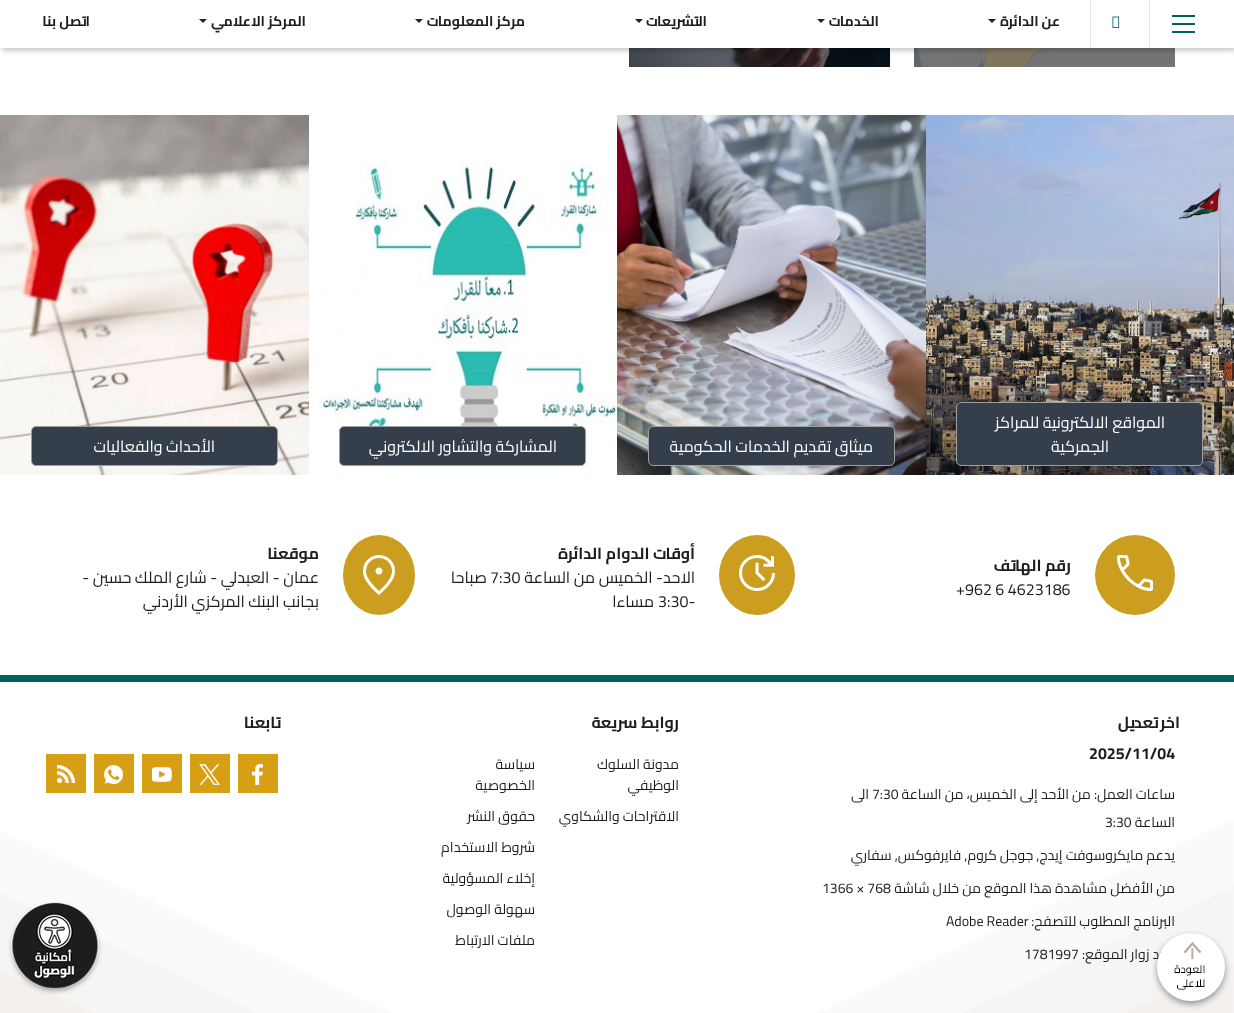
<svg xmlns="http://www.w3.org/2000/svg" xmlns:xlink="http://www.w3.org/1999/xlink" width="1234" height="1013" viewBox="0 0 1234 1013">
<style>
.cls-1{font:bold 14px Cairo;direction:rtl;fill:#1d1d1d}
.cls-2{font:16px Cairo;direction:rtl;fill:#ffffff}
.cls-3{font:bold 16px Cairo;direction:rtl;fill:#1d1d1d}
.cls-4{font:16px Cairo;fill:#1d1d1d}
.cls-5{font:16px Cairo;direction:rtl;fill:#1d1d1d}
.cls-6{font:bold 16px Cairo;letter-spacing:0.75px;direction:rtl;fill:#1d1d1d}
.cls-7{font:bold 16px Cairo;fill:#1d1d1d}
.cls-8{font:14px Cairo;direction:rtl;fill:#1d1d1d}
.cls-9{font:14px Cairo;fill:#1d1d1d}
</style>
<rect width="100%" height="100%" fill="#ffffff"/>
<image xlink:href="image1.png" x="914" y="48" width="261" height="19"/>
<image xlink:href="image2.png" x="629" y="48" width="261" height="19"/>
<rect fill="#000000" fill-opacity="0.2" filter="blur(2.5px)" x="2" y="3" width="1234" height="48"/>
<rect fill="#ffffff" x="0" y="0" width="1234" height="48"/>
<rect fill="#e6e6e6" x="1149" y="0" width="1" height="48"/>
<rect fill="#00635e" x="1172" y="15" width="23" height="2"/>
<rect fill="#00635e" x="1172" y="23" width="23" height="2"/>
<rect fill="#00635e" x="1172" y="31" width="23" height="2"/>
<rect fill="#e6e6e6" x="1090" y="0" width="1" height="48"/>
<image xlink:href="image0.png" x="1112" y="16" width="8" height="12"/>
<path fill="#212121" d="M988 19H996L992 23Z"/>
<path fill="#212121" d="M817 19H825L821 23Z"/>
<path fill="#212121" d="M635 19H643L639 23Z"/>
<path fill="#212121" d="M415 19H423L419 23Z"/>
<path fill="#212121" d="M199 19H207L203 23Z"/>
<image xlink:href="image3.png" x="926" y="115" width="308" height="360"/>
<rect fill="#343f4b" stroke="#a19e9e" x="956.5" y="402.5" width="246" height="63" rx="4.5"/>
<image xlink:href="image4.png" x="617" y="115" width="309" height="360"/>
<rect fill="#343f4b" stroke="#a19e9e" x="648.5" y="426.5" width="246" height="39" rx="4.5"/>
<image xlink:href="image5.png" x="317" y="163" width="300" height="295"/>
<rect fill="#343f4b" stroke="#a19e9e" x="339.5" y="426.5" width="246" height="39" rx="4.5"/>
<image xlink:href="image6.png" x="0" y="115" width="309" height="360"/>
<rect fill="#343f4b" stroke="#a19e9e" x="31.5" y="426.5" width="246" height="39" rx="4.5"/>
<circle fill="#cc9e20" cx="1135" cy="575" r="40"/>
<image xlink:href="image7.png" x="1117" y="555" width="36" height="36"/>
<ellipse fill="#cc9e20" cx="757" cy="575" rx="38" ry="40"/>
<image xlink:href="image8.png" x="739" y="555" width="36" height="36"/>
<ellipse fill="#cc9e20" cx="379" cy="575" rx="36" ry="40"/>
<image xlink:href="image9.png" x="363" y="555" width="32" height="40"/>
<rect fill="#00635e" x="0" y="675" width="1234" height="7"/>
<image xlink:href="image10.png" x="0" y="820" width="1234" height="193"/>
<rect fill="#d79f13" x="238" y="754" width="40" height="39"/>
<image xlink:href="image12.png" x="252" y="764" width="11" height="21"/>
<rect fill="#d79f13" x="190" y="754" width="40" height="39"/>
<image xlink:href="image13.png" x="199" y="764" width="21" height="21"/>
<rect fill="#d79f13" x="142" y="754" width="40" height="39"/>
<image xlink:href="image14.png" x="152" y="767" width="20" height="15"/>
<rect fill="#d79f13" x="94" y="754" width="40" height="39"/>
<image xlink:href="image15.png" x="104" y="765" width="19" height="19"/>
<rect fill="#d79f13" x="46" y="754" width="40" height="39"/>
<image xlink:href="image16.png" x="57" y="765" width="18" height="18"/>
<image xlink:href="image17.png" x="8" y="902" width="94" height="93"/>
<text class="cls-1" x="1060" y="26">عن الدائرة</text>
<text class="cls-1" x="879" y="26">الخدمات</text>
<text class="cls-1" x="707" y="26">التشريعات</text>
<text class="cls-1" x="525" y="26">مركز المعلومات</text>
<text class="cls-1" x="306" y="26">المركز الاعلامي</text>
<text class="cls-1" x="90" y="26">اتصل بنا</text>
<text class="cls-2" x="1165" y="428">المواقع الالكترونية للمراكز</text>
<text class="cls-2" x="1109" y="452">الجمركية</text>
<text class="cls-2" x="873" y="452">ميثاق تقديم الخدمات الحكومية</text>
<text class="cls-2" x="557" y="452">المشاركة والتشاور الالكتروني</text>
<text class="cls-2" x="215" y="452">الأحداث والفعاليات</text>
<text class="cls-3" x="1071" y="571">رقم الهاتف</text>
<text class="cls-4" x="956" y="595">+962 6 4623186</text>
<text class="cls-3" x="695" y="559">أوقات الدوام الدائرة</text>
<text class="cls-5" x="695" y="583">الاحد- الخميس من الساعة</text>
<text class="cls-4" x="490" y="583">7:30</text>
<text class="cls-5" x="487" y="583">صباحا</text>
<text class="cls-4" x="658" y="607">3:30-</text>
<text class="cls-5" x="654" y="607">مساءا</text>
<text class="cls-3" x="319" y="559">موقعنا</text>
<text class="cls-5"><tspan x="319" y="583">عمان - العبدلي - شارع الملك حسين -</tspan><tspan x="319" y="607">بجانب البنك المركزي الأردني</tspan></text>
<text class="cls-6" x="1180" y="728" word-spacing="-1">اخر تعديل</text>
<text class="cls-7" x="1089" y="759">2025/11/04</text>
<text class="cls-8" x="1175" y="799">ساعات العمل: من الأحد إلى الخميس، من الساعة</text>
<text class="cls-9" x="872" y="799">7:30</text>
<text class="cls-8" x="869" y="799">الى</text>
<text class="cls-8" x="1175" y="827">الساعة</text>
<text class="cls-9" x="1105" y="827">3:30</text>
<text class="cls-8" x="1175" y="860">يدعم مايكروسوفت إيدج, جوجل كروم, فايرفوكس, سفاري</text>
<text class="cls-8" x="1175" y="893">من الأفضل مشاهدة هذا الموقع من خلال شاشة</text>
<text class="cls-9" x="822" y="893">1366 × 768</text>
<text class="cls-8" x="1175" y="926">البرنامج المطلوب للتصفح:</text>
<text class="cls-9" x="946" y="926">Adobe Reader</text>
<text class="cls-8" x="1175" y="959">عدد زوار الموقع:</text>
<image xlink:href="image11.png" x="1152" y="931" width="78" height="78"/>
<text class="cls-9" x="1024" y="959">1781997</text>
<text class="cls-3" x="679" y="728">روابط سريعة</text>
<text class="cls-8"><tspan x="679" y="769">مدونة السلوك</tspan><tspan x="679" y="790">الوظيفي</tspan></text>
<text class="cls-8" x="679" y="821">الاقتراحات والشكاوي</text>
<text class="cls-8"><tspan x="535" y="769">سياسة</tspan><tspan x="535" y="790">الخصوصية</tspan></text>
<text class="cls-8" x="535" y="821">حقوق النشر</text>
<text class="cls-8" x="535" y="852">شروط الاستخدام</text>
<text class="cls-8" x="535" y="883">إخلاء المسؤولية</text>
<text class="cls-8" x="535" y="914">سهولة الوصول</text>
<text class="cls-8" x="535" y="945">ملفات الارتباط</text>
<text class="cls-3" x="280" y="728">تابعنا</text>
</svg>
